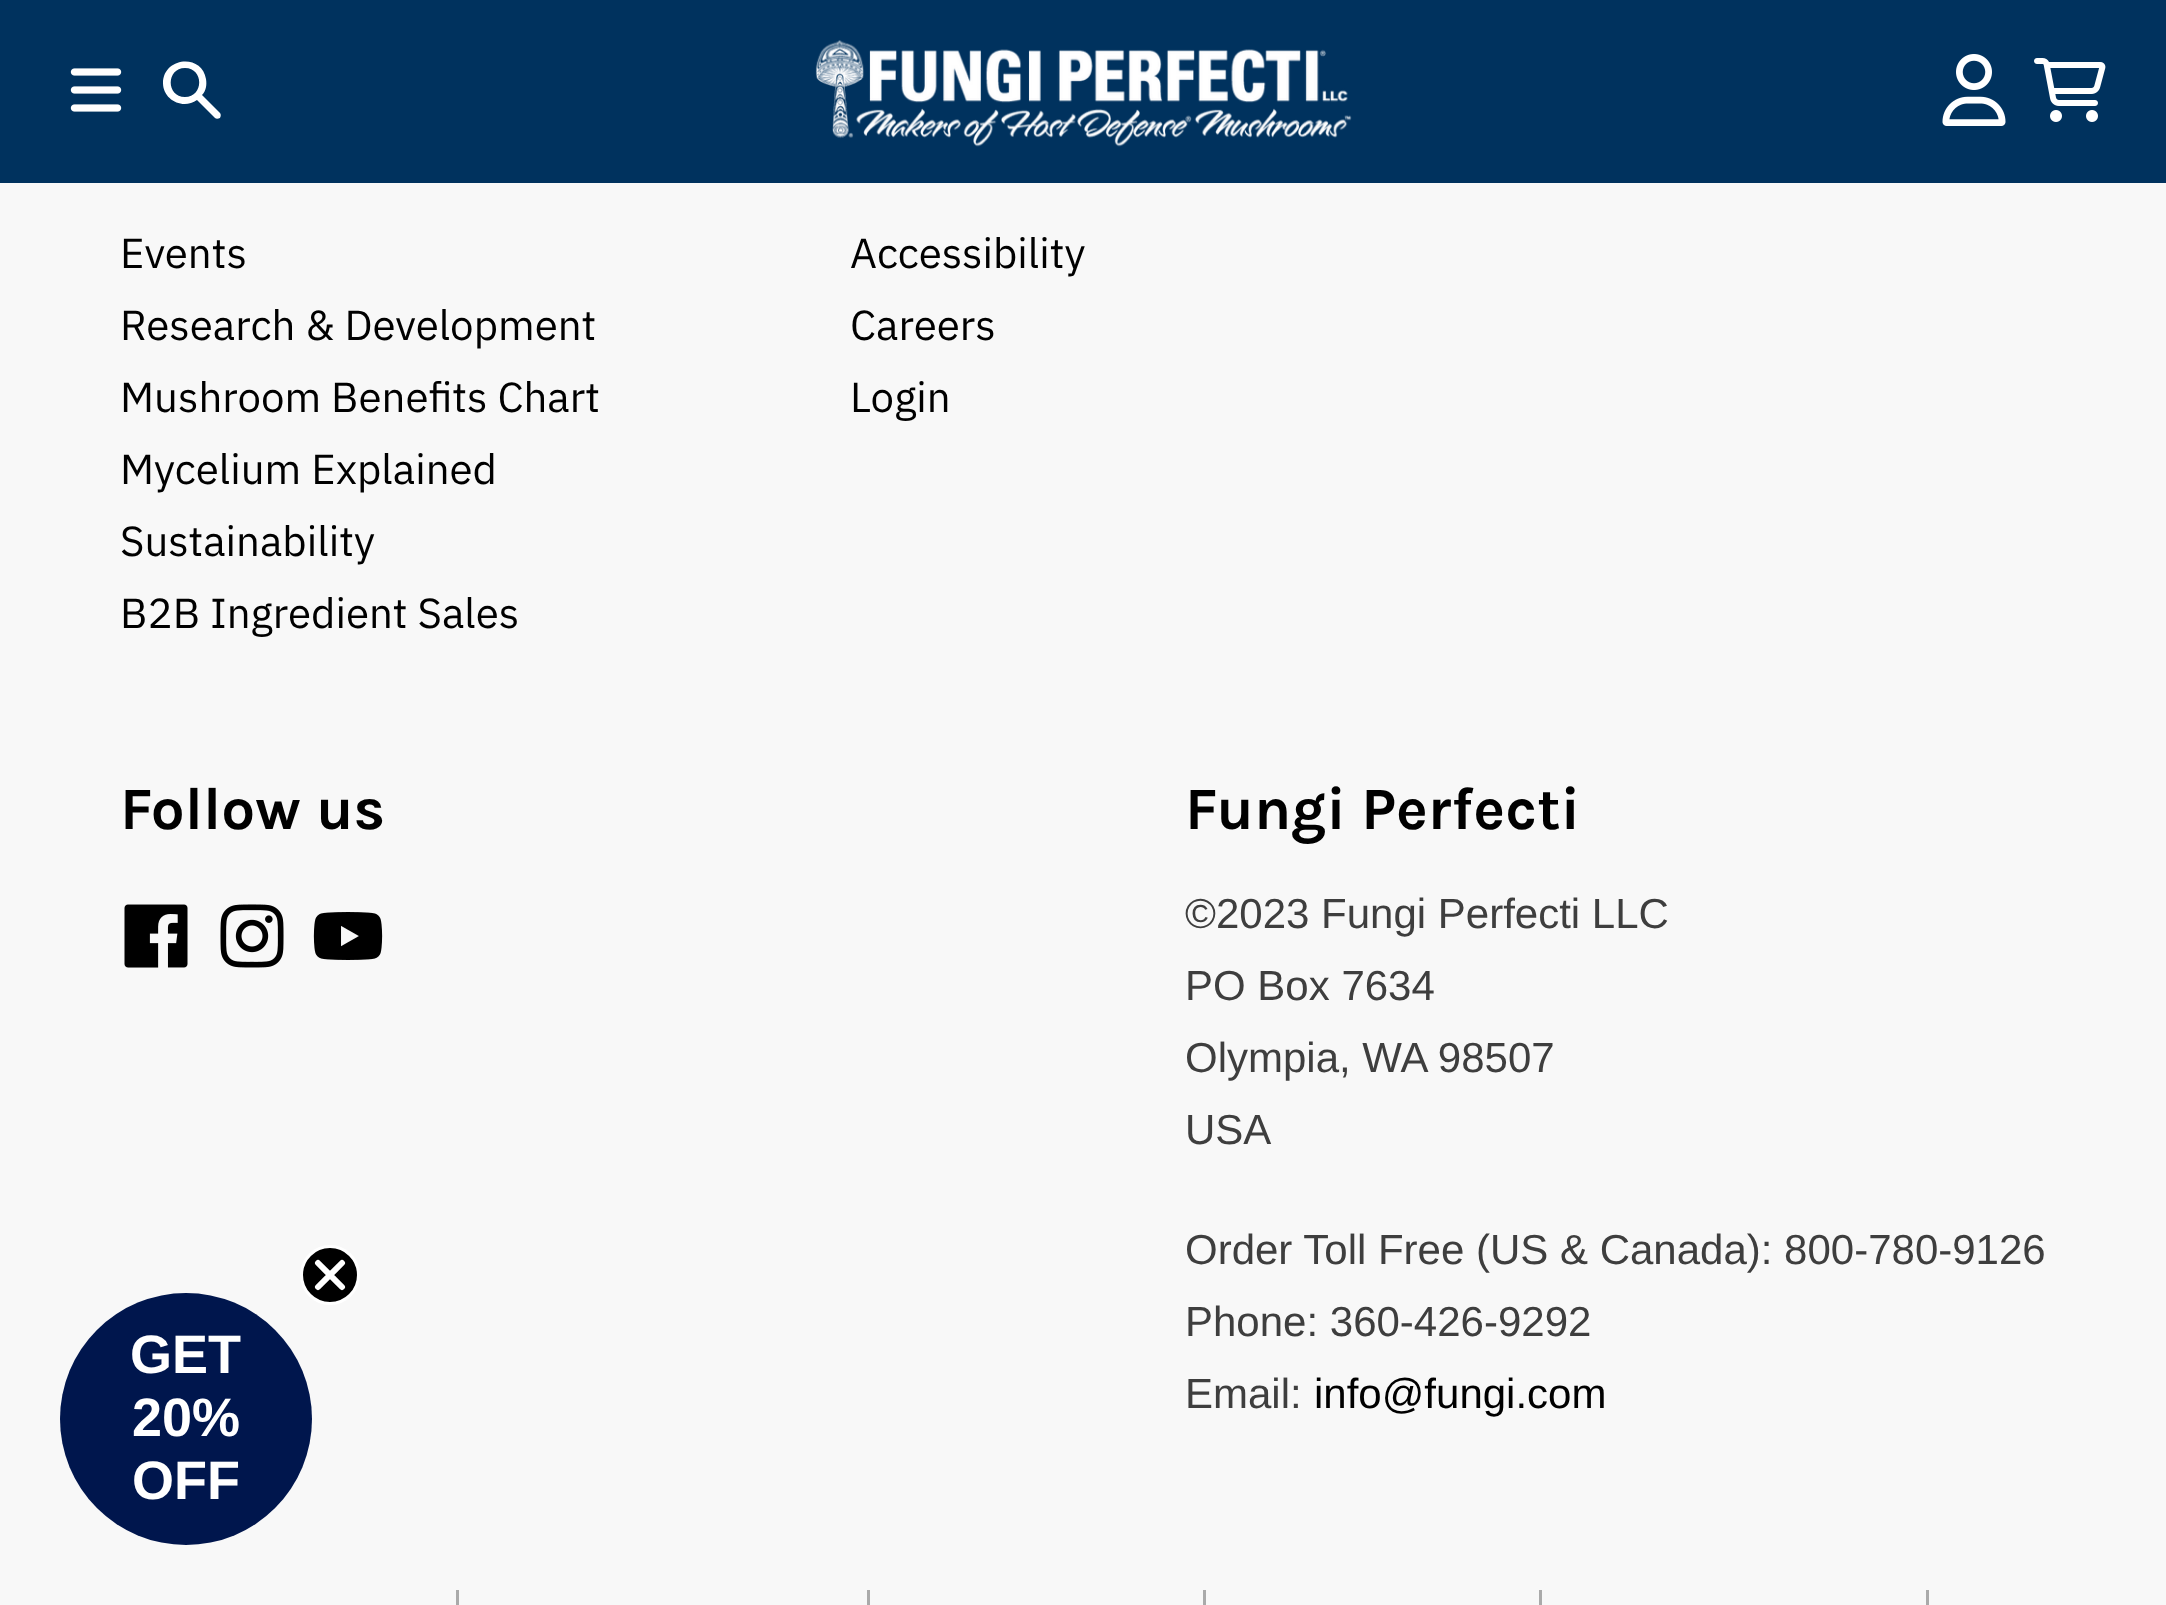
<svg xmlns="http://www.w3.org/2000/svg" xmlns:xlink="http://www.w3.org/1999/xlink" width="2166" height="1605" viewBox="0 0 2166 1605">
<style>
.cls-1{font:42px IBM Plex Sans;fill:#000000}
.cls-2{font:bold 60px Karla;fill:#000000}
.cls-3{font:42px Liberation Sans;fill:#3e3e3e}
.cls-4{font:42px Liberation Sans;fill:#000000}
.cls-5{font:bold 54px Liberation Sans;fill:#ffffff}
</style>
<rect width="100%" height="100%" fill="#f8f8f8"/>
<rect fill="#00325e" x="0" y="0" width="2166" height="183"/>
<image xlink:href="image0.png" x="70" y="68" width="52" height="44"/>
<path fill="#ffffff" fill-rule="evenodd" d="M185 68C166 68 166 97 185 97C204 97 204 68 185 68ZM163 83C163 57 202 53 206 79C207 85 206 91 202 95L220 113C221 114 221 116 220 118C218 119 216 119 215 118L197 100C183 110 163 100 163 83Z"/>
<image xlink:href="image1.png" x="815" y="40" width="537" height="107"/>
<image xlink:href="image2.png" x="1942" y="54" width="64" height="72"/>
<image xlink:href="image3.png" x="2034" y="58" width="72" height="64"/>
<image xlink:href="image4.png" x="124" y="904" width="64" height="64"/>
<image xlink:href="image5.png" x="220" y="904" width="64" height="64"/>
<image xlink:href="image6.png" x="313" y="912" width="70" height="48"/>
<rect fill="#aaaaaa" x="456" y="1590" width="3" height="15"/>
<rect fill="#aaaaaa" x="867" y="1590" width="3" height="15"/>
<rect fill="#aaaaaa" x="1203" y="1590" width="3" height="15"/>
<rect fill="#aaaaaa" x="1539" y="1590" width="3" height="15"/>
<rect fill="#aaaaaa" x="1926" y="1590" width="3" height="15"/>
<circle fill="#00164d" cx="186" cy="1419" r="126"/>
<circle fill="#000000" stroke="#ffffff" stroke-width="3" cx="330" cy="1275" r="28.5"/>
<path fill="none" stroke="#ffffff" stroke-width="6" stroke-linecap="round" stroke-linejoin="round" d="M318 1263L342 1287M318 1287L342 1263Z"/>
<text class="cls-1"><tspan x="120" y="268">Events</tspan><tspan x="120" y="340">Research &amp; Development</tspan><tspan x="120" y="412">Mushroom Benefits Chart</tspan><tspan x="120" y="484">Mycelium Explained</tspan><tspan x="120" y="556">Sustainability</tspan><tspan x="120" y="628">B2B Ingredient Sales</tspan></text>
<text class="cls-1"><tspan x="850" y="268">Accessibility</tspan><tspan x="850" y="340">Careers</tspan><tspan x="850" y="412">Login</tspan></text>
<text class="cls-2" x="120" y="829">Follow us</text>
<text class="cls-2" x="1185" y="829">Fungi Perfecti</text>
<text class="cls-3"><tspan x="1185" y="928">©2023 Fungi Perfecti LLC</tspan><tspan x="1185" y="1000">PO Box 7634</tspan><tspan x="1185" y="1072">Olympia, WA 98507</tspan><tspan x="1185" y="1144">USA</tspan></text>
<text class="cls-3"><tspan x="1185" y="1264">Order Toll Free (US &amp; Canada): 800-780-9126</tspan><tspan x="1185" y="1336">Phone: 360-426-9292</tspan><tspan x="1185" y="1408">Email:</tspan></text>
<text class="cls-4" x="1314" y="1408">info@fungi.com</text>
<text class="cls-5" x="130" y="1373">GET</text>
<text class="cls-5"><tspan x="132" y="1436">20%</tspan><tspan x="132" y="1499">OFF</tspan></text>
</svg>
